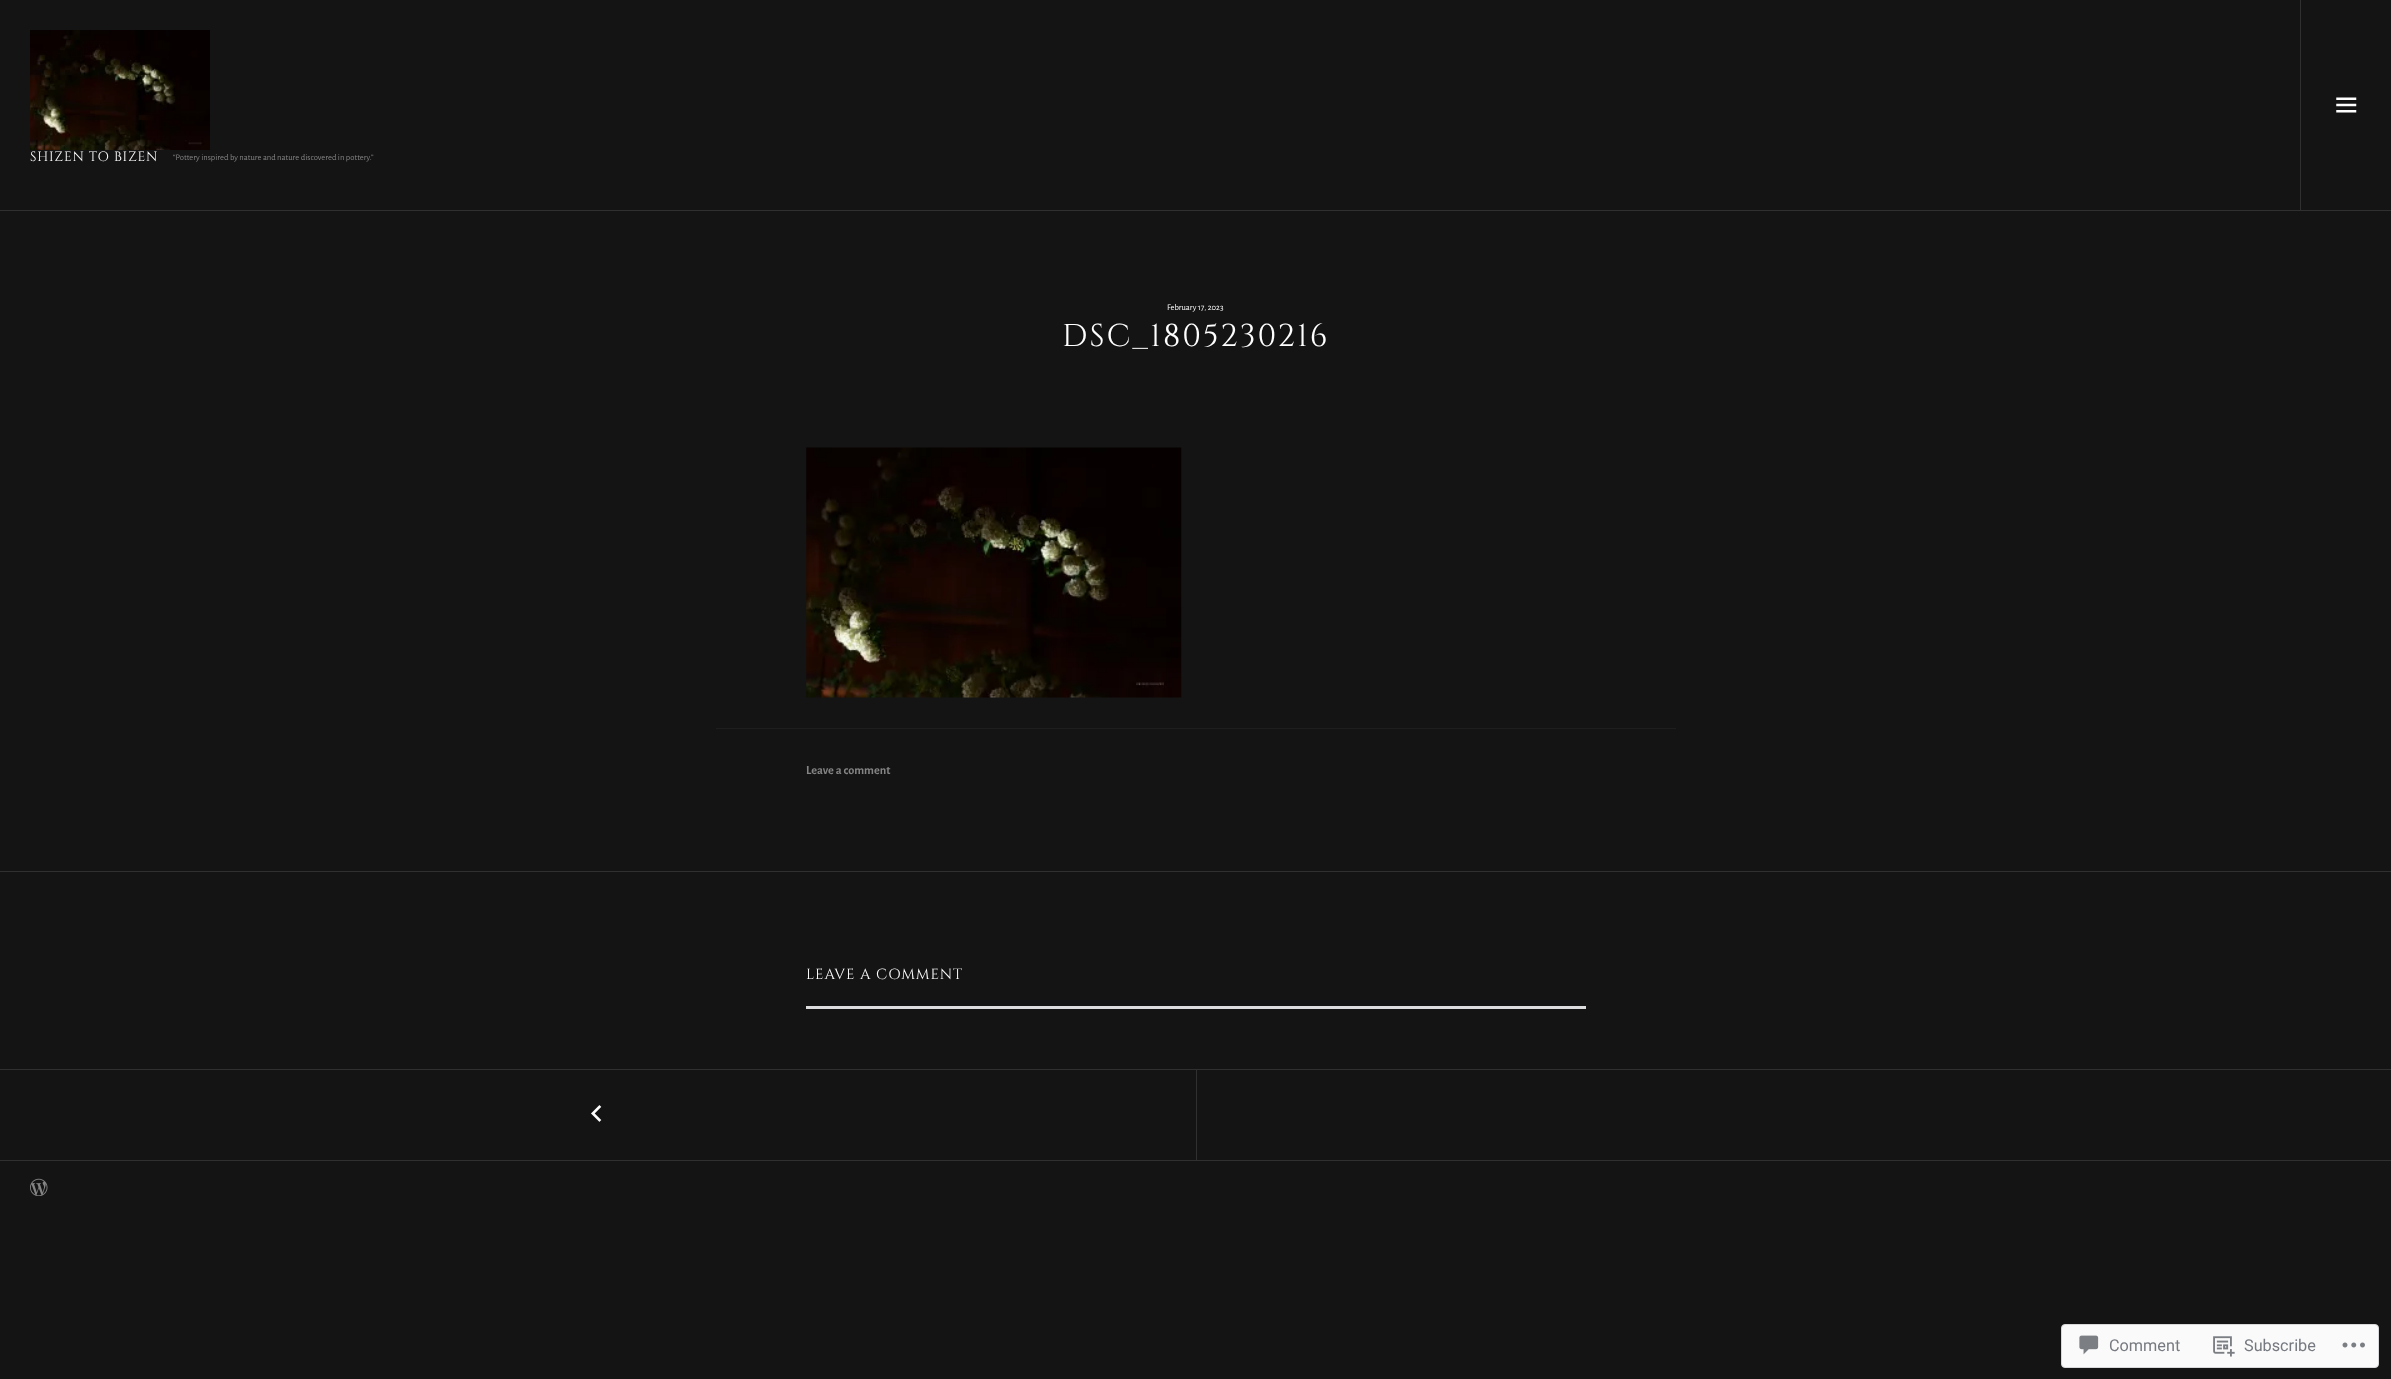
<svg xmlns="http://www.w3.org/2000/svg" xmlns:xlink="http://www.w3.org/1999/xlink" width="2391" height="1379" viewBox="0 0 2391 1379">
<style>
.cls-1{font:13.5px Cinzel;letter-spacing:0.8px;fill:#ffffff}
.cls-2{font:8.6px Alegreya Sans;fill:#848484}
.cls-3{font:8.6px Alegreya Sans;fill:#ffffff}
.cls-4{font:31.5px Cinzel;letter-spacing:2px;fill:#ffffff}
.cls-5{font:bold 12.25px Alegreya Sans;fill:#848484}
.cls-6{font:14.75px Cinzel;letter-spacing:0.9px;fill:#ffffff}
.cls-7{font:16.25px Roboto;fill:#767a80}
</style>
<rect width="100%" height="100%" fill="#141414"/>
<rect fill="#303030" x="0" y="210" width="2391" height="1"/>
<image xlink:href="image0.png" x="30" y="30" width="180" height="120"/>
<rect fill="#303030" x="2300" y="0" width="1" height="210"/>
<image xlink:href="image1.png" x="2336" y="97" width="21" height="16"/>
<image xlink:href="image2.png" x="806" y="447" width="376" height="251"/>
<rect fill="#1e1e1e" x="716" y="728" width="960" height="1"/>
<rect fill="#303030" x="0" y="871" width="2391" height="1"/>
<rect fill="#dcdcde" x="806" y="1006" width="780" height="3"/>
<rect fill="#303030" x="0" y="1069" width="2391" height="1"/>
<image xlink:href="image3.png" x="591" y="1105" width="11" height="17"/>
<rect fill="#303030" x="1196" y="1070" width="1" height="90"/>
<rect fill="#303030" x="0" y="1160" width="2391" height="1"/>
<image xlink:href="image4.png" x="30" y="1178" width="18" height="18"/>
<rect fill="#fafafa" stroke="#d8d8da" x="2061.5" y="1324.5" width="317" height="43" rx="3.5"/>
<image xlink:href="image5.png" x="2079" y="1335" width="20" height="20"/>
<image xlink:href="image6.png" x="2213" y="1336" width="22" height="21"/>
<image xlink:href="image7.png" x="2342" y="1342" width="23" height="6"/>
<text class="cls-1" x="30" y="161">SHIZEN TO BIZEN</text>
<text class="cls-2" x="173" y="160">“Pottery inspired by nature and nature discovered in pottery.”</text>
<text class="cls-3" x="1167" y="310">February 17, 2023</text>
<text class="cls-4" x="1062" y="346">DSC_1805230216</text>
<text class="cls-5" x="806" y="774">Leave a comment</text>
<text class="cls-6" x="806" y="979">LEAVE A COMMENT</text>
<text class="cls-7" x="2109" y="1351">Comment</text>
<text class="cls-7" x="2244" y="1351">Subscribe</text>
</svg>
